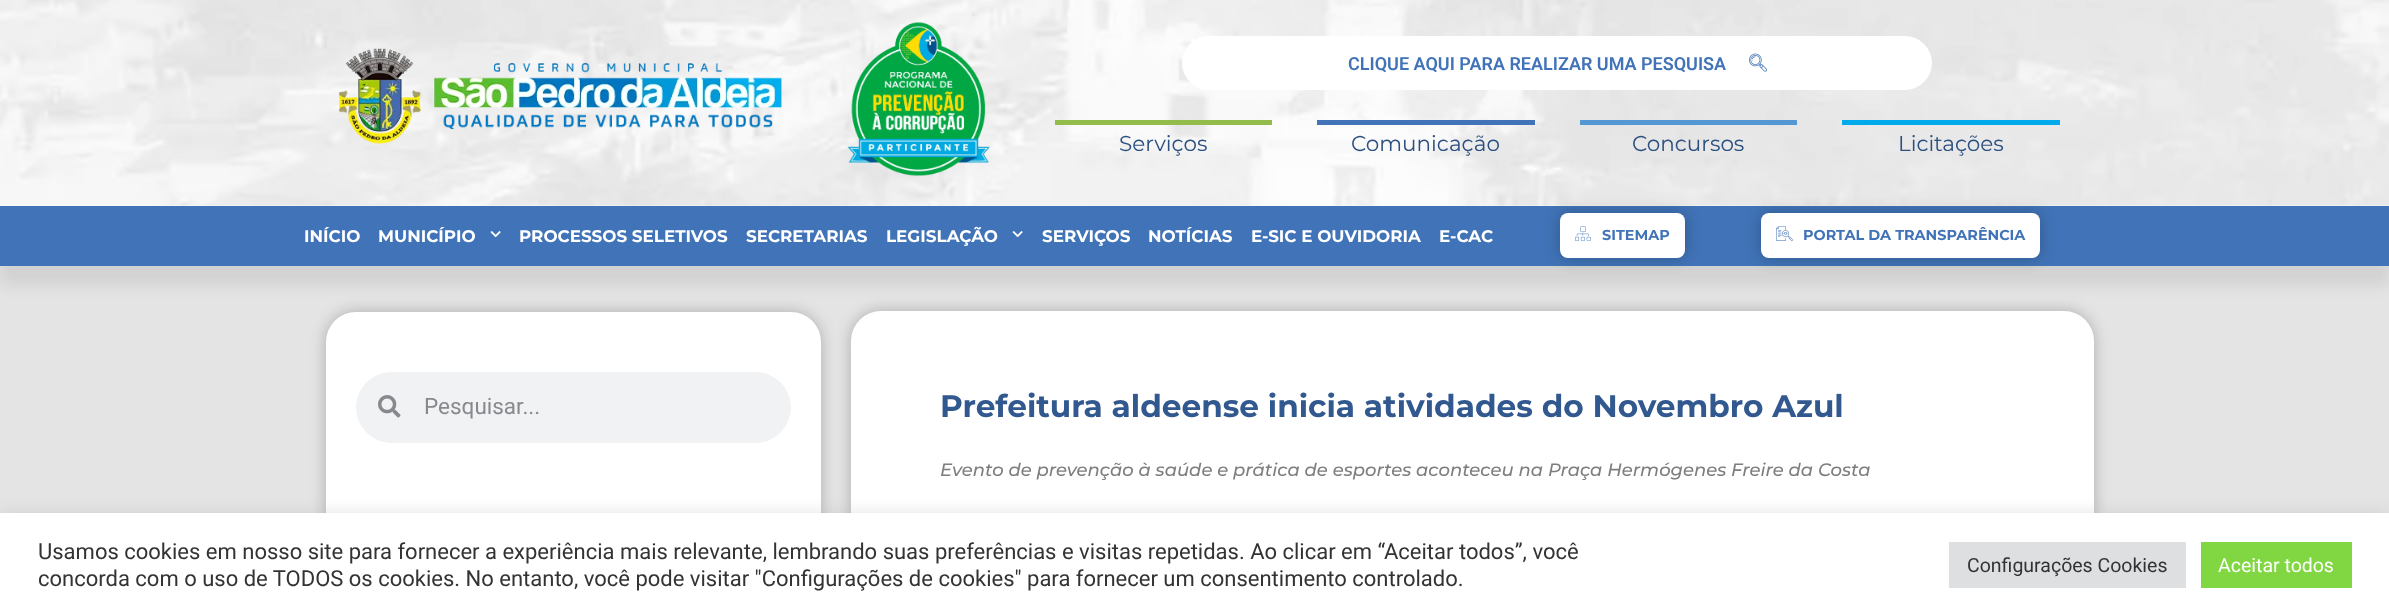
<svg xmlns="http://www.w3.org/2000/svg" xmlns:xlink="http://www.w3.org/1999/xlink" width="2389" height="616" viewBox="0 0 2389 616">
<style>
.cls-1{font:600 18px Roboto;fill:#4073b7}
.cls-2{font:21.5px Montserrat;fill:#2b4f80}
.cls-3{font:bold 16.75px Montserrat;fill:#ffffff}
.cls-4{font:bold 14.4px Montserrat;fill:#4073b7}
.cls-5{font:22.5px Roboto;fill:#868a8e}
.cls-6{font:bold 31.2px Montserrat;fill:#31598f}
.cls-7{font:italic 500 18px Montserrat;fill:#7e7e7e}
.cls-8{font:22px Roboto;fill:#333333}
.cls-9{font:19.5px Roboto;fill:#333333}
.cls-10{font:19.5px Roboto;fill:#ffffff}
</style>
<rect width="100%" height="100%" fill="#e4e4e4"/>
<rect fill="#f9f9f9" x="0" y="0" width="2389" height="206"/>
<image xlink:href="image0.png" x="0" y="0" width="2389" height="206"/>
<image xlink:href="image1.png" x="339" y="48" width="443" height="96"/>
<image xlink:href="image2.png" x="847" y="22" width="143" height="154"/>
<rect fill="#ffffff" x="1182" y="36" width="750" height="54" rx="27"/>
<image xlink:href="image3.png" x="1749" y="53" width="18" height="19"/>
<rect fill="#93bc4d" x="1055" y="120" width="217" height="5"/>
<rect fill="#4073b7" x="1317" y="120" width="218" height="5"/>
<rect fill="#5597d3" x="1580" y="120" width="217" height="5"/>
<rect fill="#01abeb" x="1842" y="120" width="218" height="5"/>
<rect fill="#000000" fill-opacity="0.08" filter="blur(7.5px)" x="0" y="225" width="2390" height="60"/>
<rect fill="#4073b7" x="0" y="206" width="2389" height="60"/>
<image xlink:href="image4.png" x="490" y="231" width="11" height="7"/>
<image xlink:href="image4.png" x="1012" y="231" width="11" height="7"/>
<rect fill="#000000" fill-opacity="0.23" filter="blur(7.5px)" x="1560" y="213" width="125" height="45" rx="8"/>
<rect fill="#ffffff" x="1560" y="213" width="125" height="45" rx="8"/>
<image xlink:href="image5.png" x="1575" y="226" width="16" height="15"/>
<rect fill="#000000" fill-opacity="0.23" filter="blur(7.5px)" x="1761" y="213" width="279" height="45" rx="8"/>
<rect fill="#ffffff" x="1761" y="213" width="279" height="45" rx="8"/>
<image xlink:href="image6.png" x="1776" y="226" width="17" height="15"/>
<rect fill="#000000" fill-opacity="0.24" filter="blur(7.5px)" x="326" y="312" width="495" height="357" rx="30"/>
<rect fill="#ffffff" x="326" y="312" width="495" height="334" rx="30"/>
<rect fill="#f1f2f3" x="356" y="372" width="435" height="71" rx="35.5"/>
<image xlink:href="image7.png" x="378" y="395" width="23" height="23"/>
<rect fill="#000000" fill-opacity="0.24" filter="blur(7.5px)" x="851" y="311" width="1243" height="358" rx="30"/>
<rect fill="#ffffff" x="851" y="311" width="1243" height="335" rx="30"/>
<rect fill="#acabab" fill-opacity="0.3" filter="blur(7.5px)" x="0" y="512" width="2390" height="103"/>
<rect fill="#ffffff" x="0" y="513" width="2389" height="103"/>
<rect fill="#dedfe0" x="1949" y="542" width="237" height="46"/>
<rect fill="#81d742" x="2201" y="542" width="151" height="46"/>
<text class="cls-1" x="1348" y="70">CLIQUE AQUI PARA REALIZAR UMA PESQUISA</text>
<text class="cls-2" x="1119" y="151">Serviços</text>
<text class="cls-2" x="1351" y="151">Comunicação</text>
<text class="cls-2" x="1632" y="151">Concursos</text>
<text class="cls-2" x="1898" y="151">Licitações</text>
<text class="cls-3" x="304" y="242">INÍCIO</text>
<text class="cls-3" x="378" y="242">MUNICÍPIO</text>
<text class="cls-3" x="519" y="242">PROCESSOS SELETIVOS</text>
<text class="cls-3" x="746" y="242">SECRETARIAS</text>
<text class="cls-3" x="886" y="242">LEGISLAÇÃO</text>
<text class="cls-3" x="1042" y="242">SERVIÇOS</text>
<text class="cls-3" x="1148" y="242">NOTÍCIAS</text>
<text class="cls-3" x="1251" y="242">E-SIC E OUVIDORIA</text>
<text class="cls-3" x="1439" y="242">E-CAC</text>
<text class="cls-4" x="1602" y="240">SITEMAP</text>
<text class="cls-4" x="1803" y="240">PORTAL DA TRANSPARÊNCIA</text>
<text class="cls-5" x="424" y="414">Pesquisar...</text>
<text class="cls-6" x="940" y="417">Prefeitura aldeense inicia atividades do Novembro Azul</text>
<text class="cls-7" x="940" y="476">Evento de prevenção à saúde e prática de esportes aconteceu na Praça Hermógenes Freire da Costa</text>
<text class="cls-8"><tspan x="38" y="559">Usamos cookies em nosso site para fornecer a experiência mais relevante, lembrando suas preferências e visitas repetidas. Ao clicar em “Aceitar todos”, você</tspan><tspan x="38" y="586">concorda com o uso de TODOS os cookies. No entanto, você pode visitar "Configurações de cookies" para fornecer um consentimento controlado.</tspan></text>
<text class="cls-9" x="1967" y="572">Configurações Cookies</text>
<text class="cls-10" x="2218" y="572">Aceitar todos</text>
</svg>
